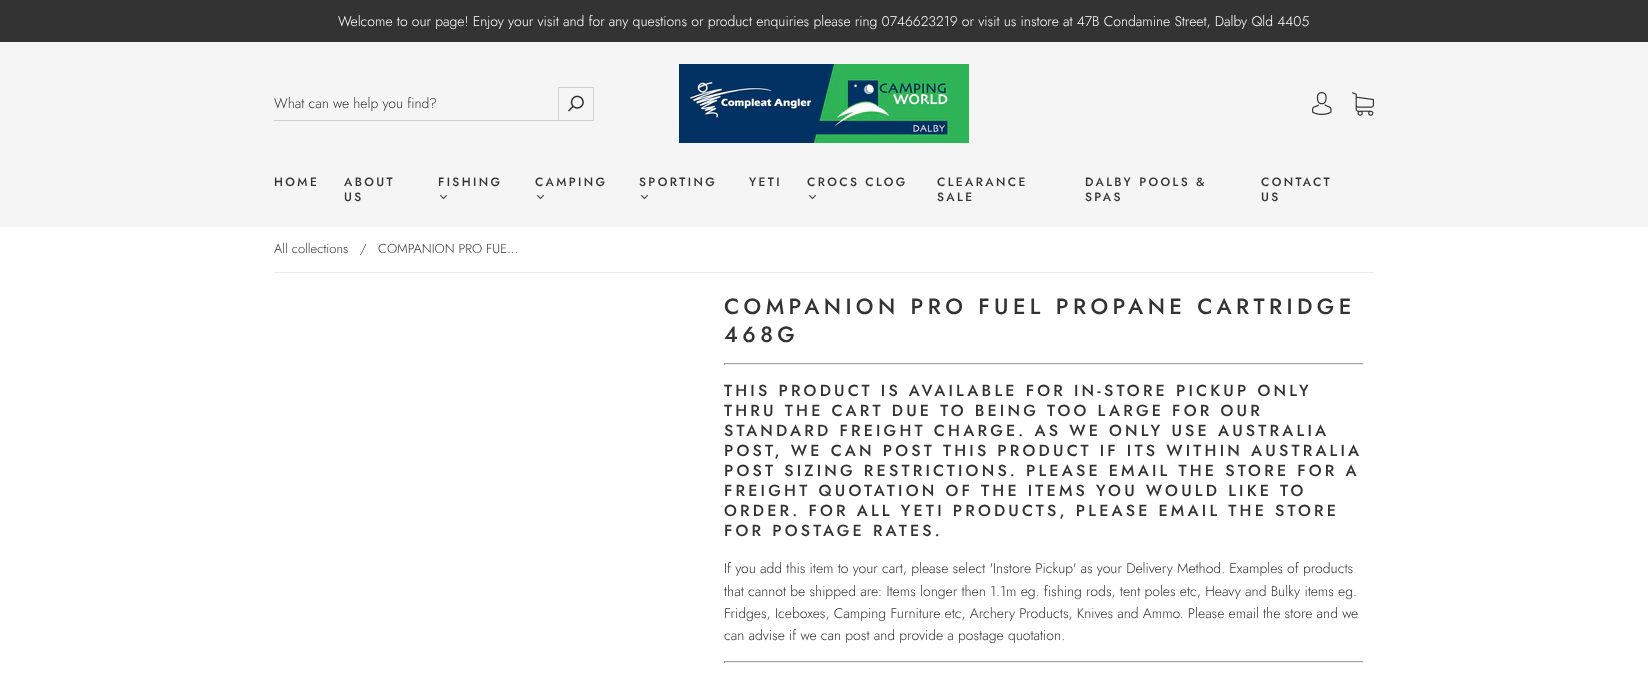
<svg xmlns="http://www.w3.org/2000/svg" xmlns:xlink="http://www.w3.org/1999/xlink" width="1648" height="677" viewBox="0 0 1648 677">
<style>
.cls-1{font:300 14px Jost;fill:#ffffff}
.cls-2{font:300 14px Jost;fill:#333333}
.cls-3{font:500 12px Jost;letter-spacing:2.4px;fill:#333333}
.cls-4{font:300 13px Jost;fill:#333333}
.cls-5{font:500 22px Jost;letter-spacing:4.4px;fill:#333333}
.cls-6{font:500 16px Jost;letter-spacing:3.2px;fill:#333333}
</style>
<rect width="100%" height="100%" fill="#ffffff"/>
<rect fill="#333333" x="0" y="0" width="1648" height="42"/>
<rect fill="#f5f5f5" x="0" y="42" width="1648" height="185"/>
<rect fill="#cecece" x="274" y="120" width="284" height="1"/>
<rect fill="none" stroke="#cecece" x="558.5" y="87.5" width="35" height="33"/>
<image xlink:href="image0.png" x="568" y="95" width="16" height="17"/>
<image xlink:href="image1.png" x="679" y="64" width="290" height="79"/>
<image xlink:href="image2.png" x="1312" y="92" width="20" height="23"/>
<image xlink:href="image3.png" x="1352" y="92" width="22" height="24"/>
<image xlink:href="image4.png" x="440" y="195" width="7" height="4"/>
<image xlink:href="image4.png" x="537" y="195" width="7" height="4"/>
<image xlink:href="image4.png" x="641" y="195" width="7" height="4"/>
<image xlink:href="image4.png" x="809" y="195" width="7" height="4"/>
<rect fill="#ebebeb" x="274" y="272" width="1100" height="1"/>
<rect fill="#9f9f9f" x="724" y="363" width="640" height="1"/>
<rect fill="#eeeeee" x="1363" y="363" width="1" height="2"/>
<rect fill="#eeeeee" x="724" y="364" width="640" height="1"/>
<rect fill="#9f9f9f" x="724" y="363" width="1" height="2"/>
<rect fill="#9f9f9f" x="724" y="661" width="640" height="1"/>
<rect fill="#eeeeee" x="1363" y="661" width="1" height="2"/>
<rect fill="#eeeeee" x="724" y="662" width="640" height="1"/>
<rect fill="#9f9f9f" x="724" y="661" width="1" height="2"/>
<text class="cls-1" x="338" y="26">Welcome to our page! Enjoy your visit and for any questions or product enquiries please ring 0746623219 or visit us instore at 47B Condamine Street, Dalby Qld 4405</text>
<text class="cls-2" x="274" y="108">What can we help you find?</text>
<text class="cls-3" x="274" y="186">HOME</text>
<text class="cls-3"><tspan x="344" y="186">ABOUT</tspan><tspan x="344" y="201">US</tspan></text>
<text class="cls-3" x="438" y="186">FISHING</text>
<text class="cls-3" x="535" y="186">CAMPING</text>
<text class="cls-3" x="639" y="186">SPORTING</text>
<text class="cls-3" x="749" y="186">YETI</text>
<text class="cls-3" x="807" y="186">CROCS CLOG</text>
<text class="cls-3"><tspan x="937" y="186">CLEARANCE</tspan><tspan x="937" y="201">SALE</tspan></text>
<text class="cls-3"><tspan x="1085" y="186">DALBY POOLS &amp;</tspan><tspan x="1085" y="201">SPAS</tspan></text>
<text class="cls-3"><tspan x="1261" y="186">CONTACT</tspan><tspan x="1261" y="201">US</tspan></text>
<text class="cls-4" x="274" y="253">All collections</text>
<text class="cls-4" x="360" y="253">/</text>
<text class="cls-4" x="378" y="253">COMPANION PRO FUE...</text>
<text class="cls-5"><tspan x="724" y="314">COMPANION PRO FUEL PROPANE CARTRIDGE</tspan><tspan x="724" y="342">468G</tspan></text>
<text class="cls-6"><tspan x="724" y="396">THIS PRODUCT IS AVAILABLE FOR IN-STORE PICKUP ONLY</tspan><tspan x="724" y="416">THRU THE CART DUE TO BEING TOO LARGE FOR OUR</tspan><tspan x="724" y="436">STANDARD FREIGHT CHARGE. AS WE ONLY USE AUSTRALIA</tspan><tspan x="724" y="456">POST, WE CAN POST THIS PRODUCT IF ITS WITHIN AUSTRALIA</tspan><tspan x="724" y="476">POST SIZING RESTRICTIONS. PLEASE EMAIL THE STORE FOR A</tspan><tspan x="724" y="496">FREIGHT QUOTATION OF THE ITEMS YOU WOULD LIKE TO</tspan><tspan x="724" y="516">ORDER. FOR ALL YETI PRODUCTS, PLEASE EMAIL THE STORE</tspan><tspan x="724" y="536">FOR POSTAGE RATES.</tspan></text>
<text class="cls-2"><tspan x="724" y="573">If you add this item to your cart, please select 'Instore Pickup' as your Delivery Method. Examples of products</tspan><tspan x="724" y="596">that cannot be shipped are: Items longer then 1.1m eg. fishing rods, tent poles etc, Heavy and Bulky items eg.</tspan><tspan x="724" y="618">Fridges, Iceboxes, Camping Furniture etc, Archery Products, Knives and Ammo. Please email the store and we</tspan><tspan x="724" y="640">can advise if we can post and provide a postage quotation.</tspan></text>
</svg>
